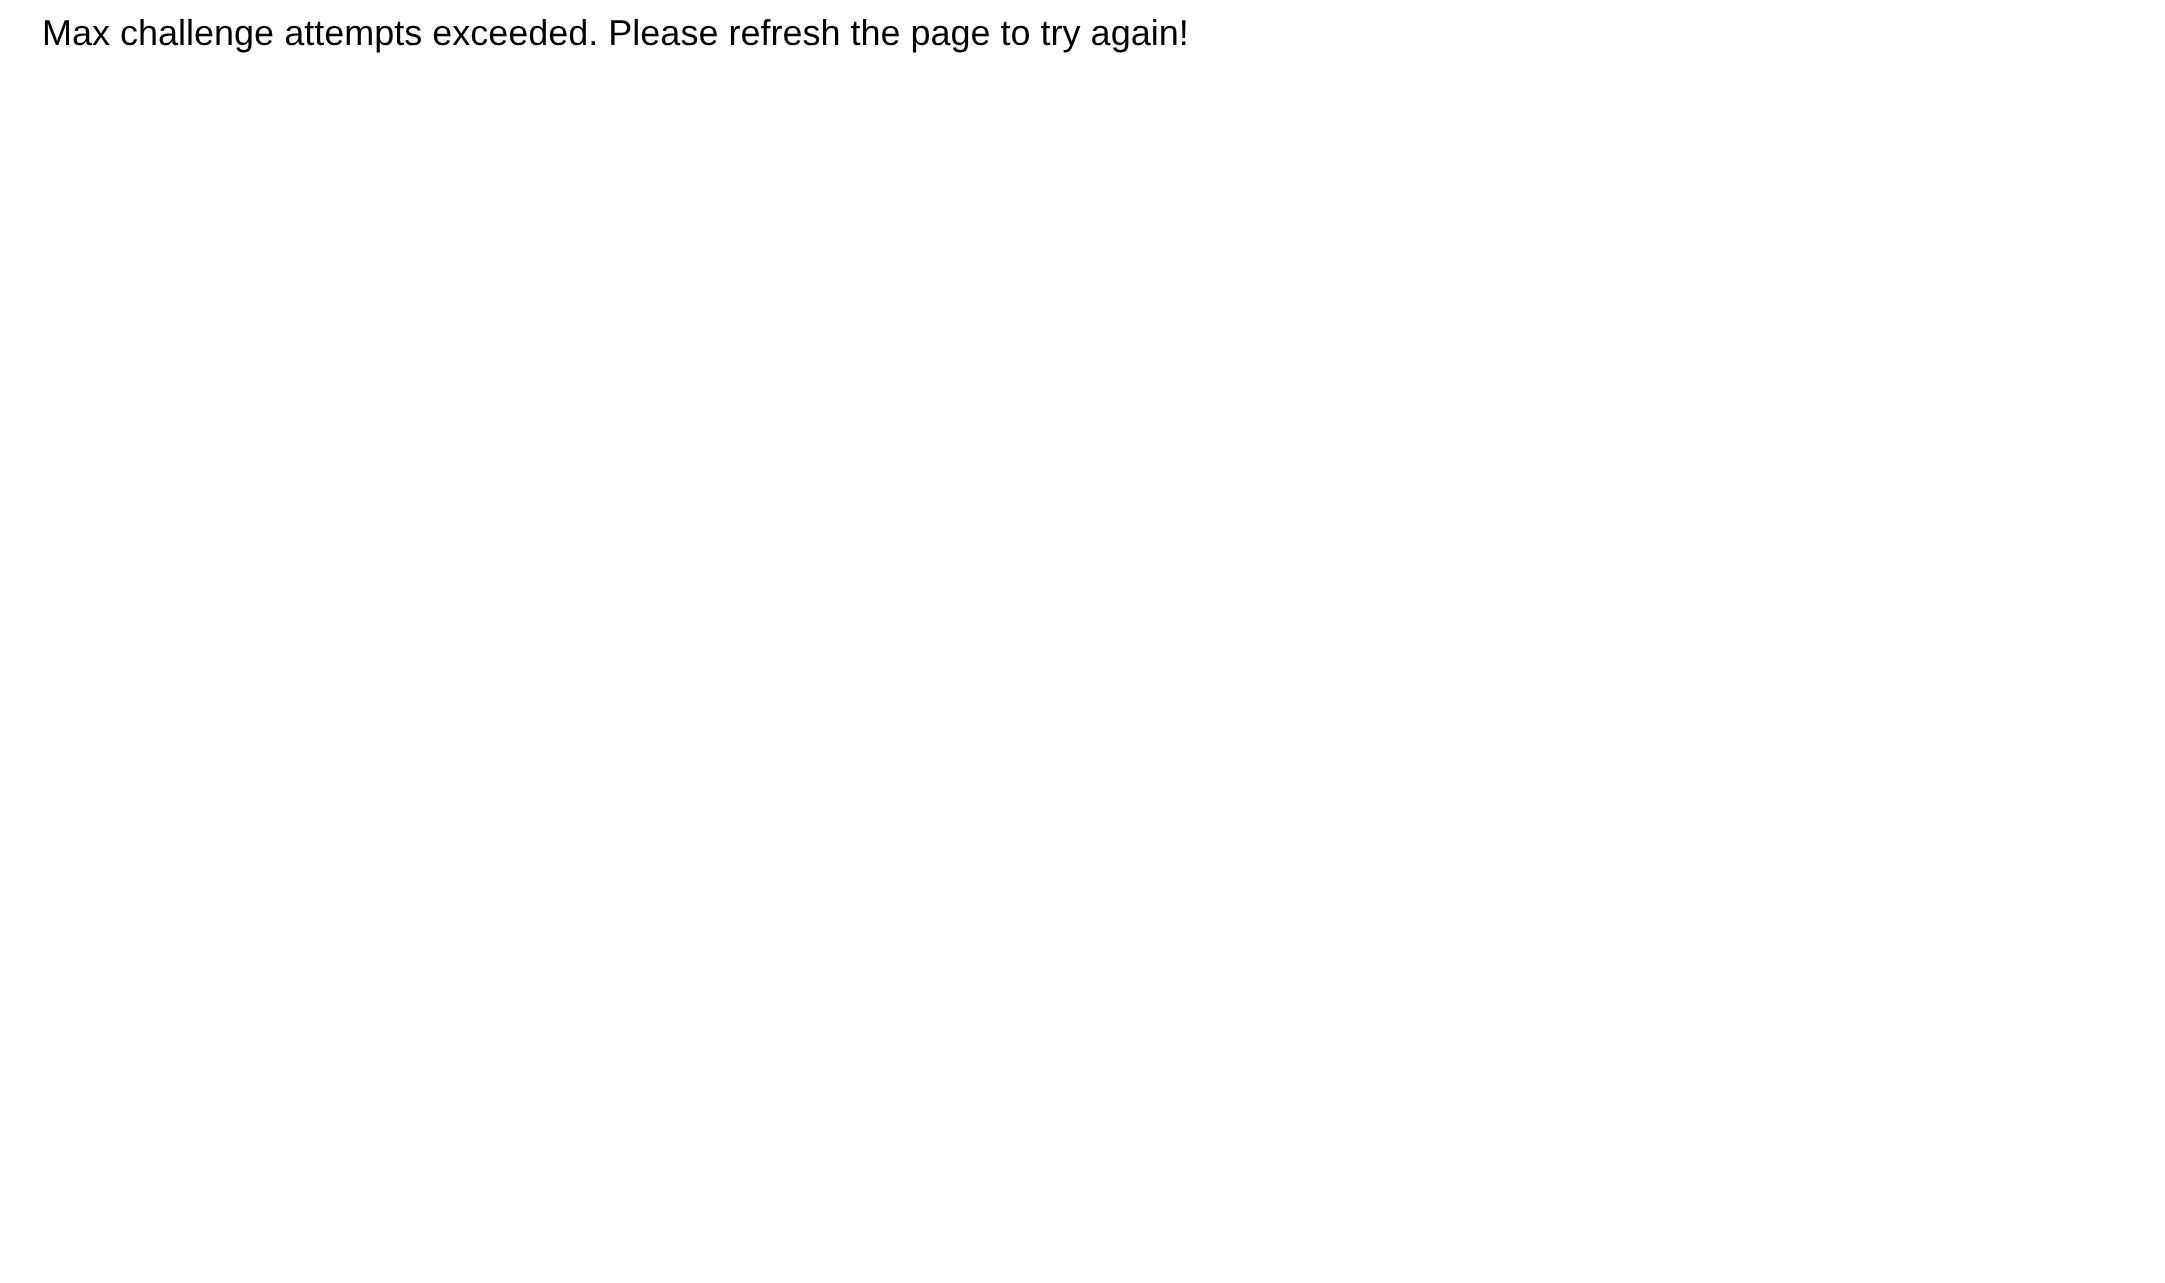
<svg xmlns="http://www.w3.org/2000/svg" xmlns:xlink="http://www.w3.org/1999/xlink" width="2165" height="1283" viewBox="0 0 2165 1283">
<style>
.cls-1{font:36px Liberation Sans;fill:#000000}
</style>
<rect width="100%" height="100%" fill="#ffffff"/>
<text class="cls-1" x="42" y="45">Max challenge attempts exceeded. Please refresh the page to try again!</text>
</svg>
